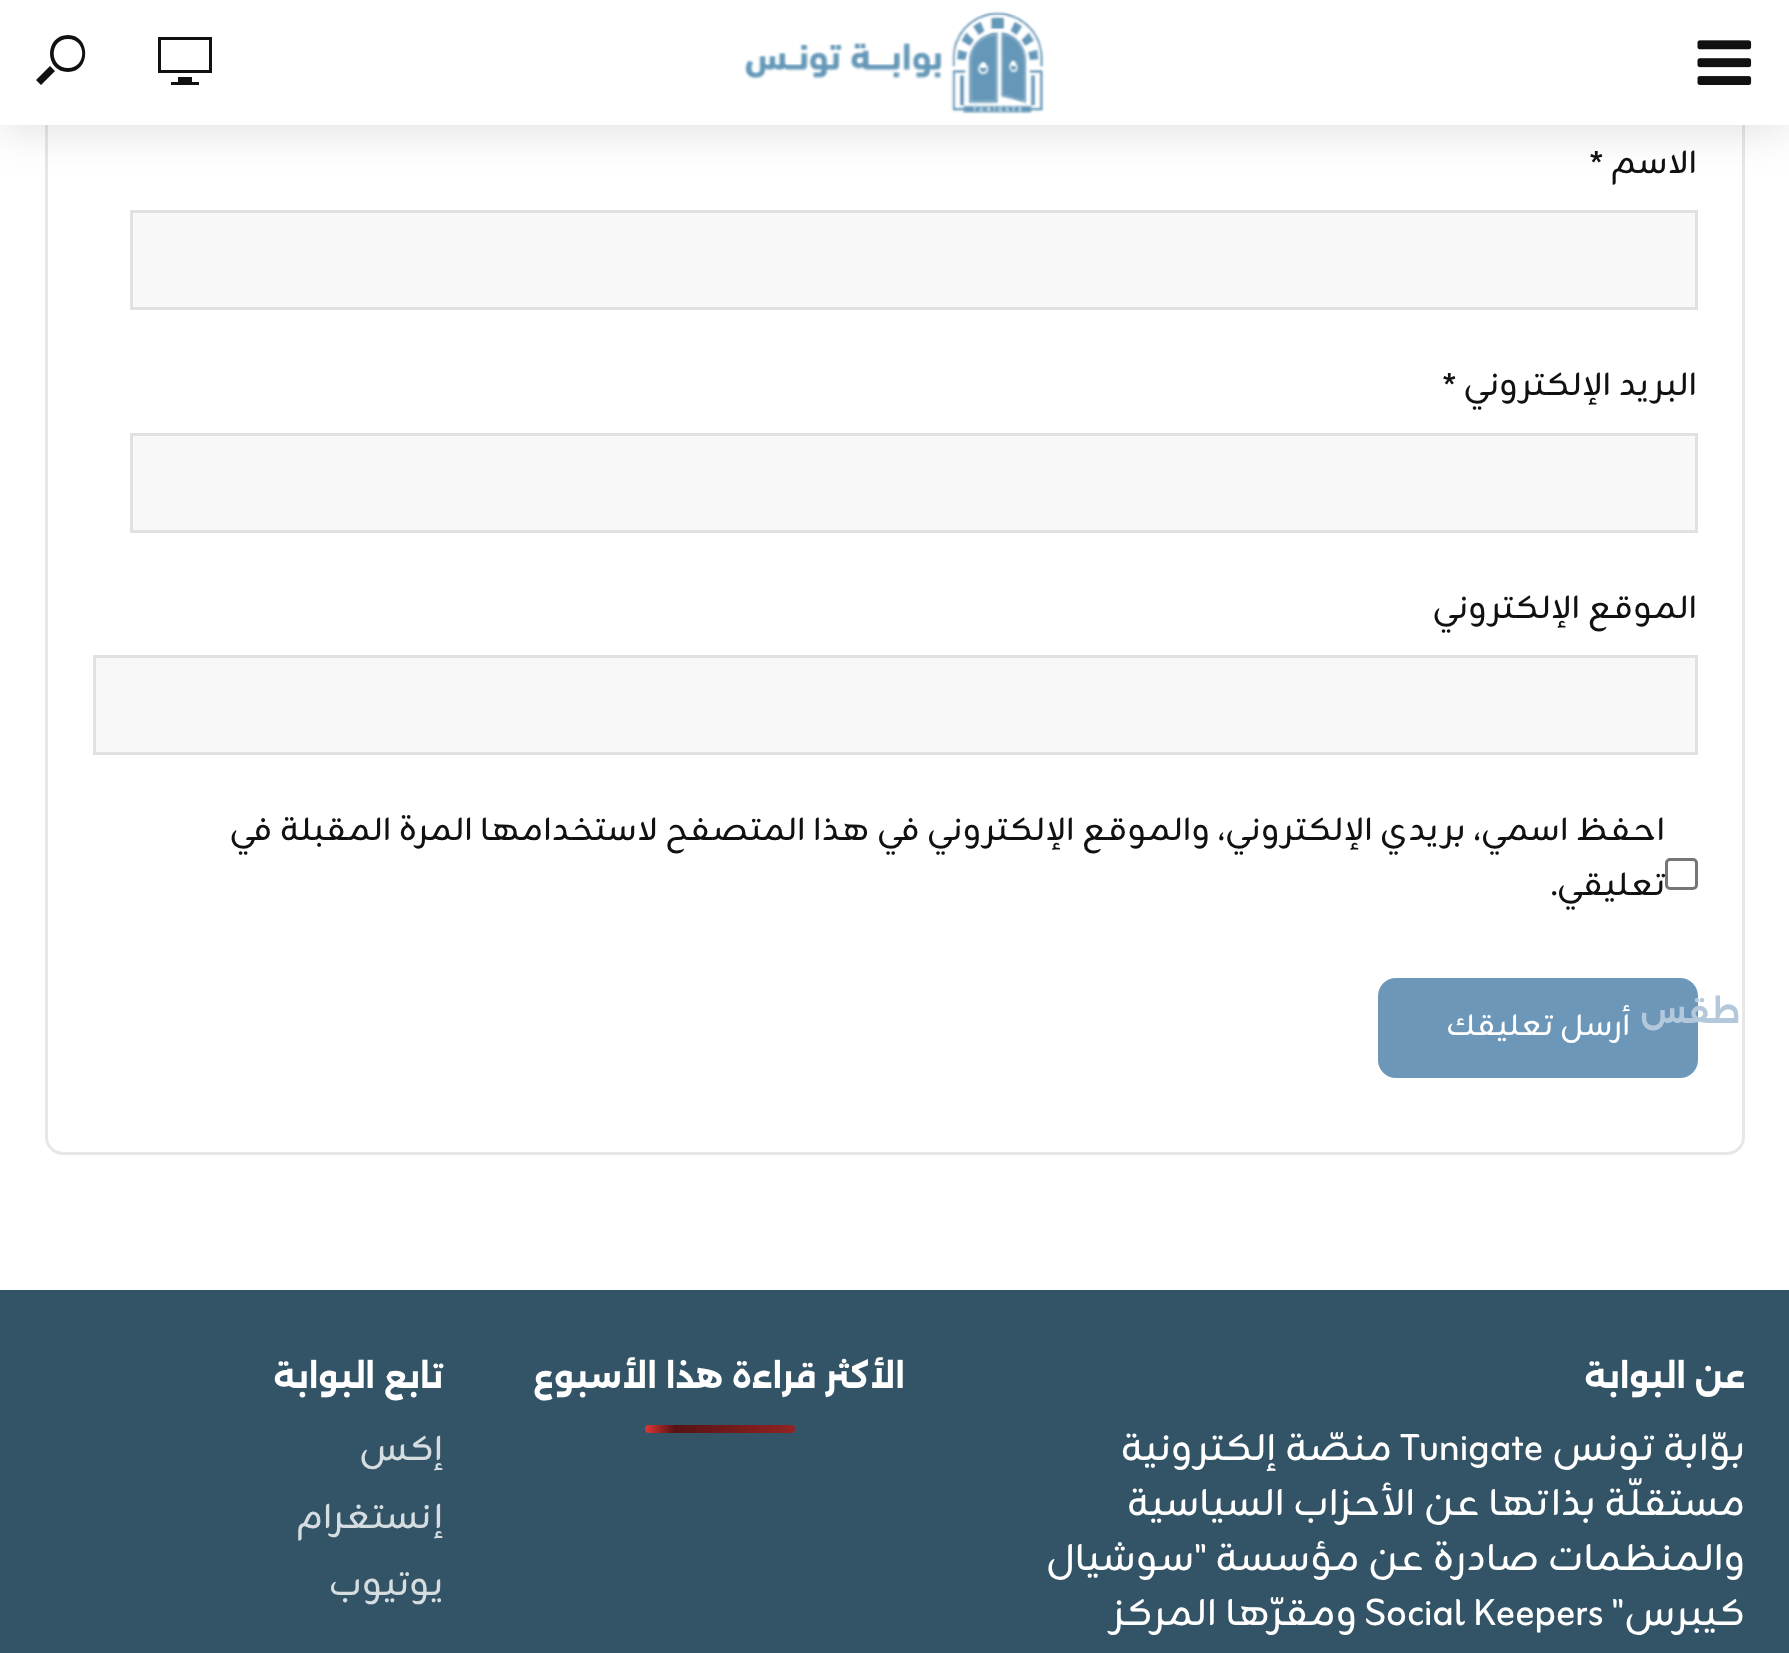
<svg xmlns="http://www.w3.org/2000/svg" xmlns:xlink="http://www.w3.org/1999/xlink" width="1789" height="1653" viewBox="0 0 1789 1653">
<style>
.cls-1{font:32.5px Zain;direction:rtl;fill:#111111}
.cls-2{font:32.5px Zain;fill:#111111}
.cls-3{font:30px Zain;direction:rtl;fill:#ffffff}
.cls-4{font:600 32.5px Alexandria;direction:rtl;fill:#b3c9db}
.cls-5{font:bold 32.5px Alexandria;direction:rtl;fill:#ffffff}
.cls-6{font:37.5px Zain;direction:rtl;fill:#ffffff}
.cls-7{font:37.5px Zain;fill:#ffffff}
.cls-8{font:35px Zain;direction:rtl;fill:#d6dde0}
</style>
<defs>
<linearGradient id="g1" gradientUnits="userSpaceOnUse" x1="645" y1="1429" x2="945" y2="1429"><stop offset="0" stop-color="#dd3737"/><stop offset="0.1" stop-color="#571313"/><stop offset="1" stop-color="#dd3737"/></linearGradient>
</defs>
<rect width="100%" height="100%" fill="#ffffff"/>
<rect fill="none" stroke="#e7e7e7" stroke-width="3" x="46.5" y="-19.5" width="1697" height="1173" rx="16.5"/>
<rect fill="#f8f8f8" stroke="#e1e1e1" stroke-width="3" x="131.5" y="211.5" width="1565" height="97"/>
<rect fill="#f8f8f8" stroke="#e1e1e1" stroke-width="3" x="131.5" y="434.5" width="1565" height="97"/>
<rect fill="#f8f8f8" stroke="#e1e1e1" stroke-width="3" x="94.5" y="656.5" width="1602" height="97"/>
<rect fill="none" stroke="#767676" stroke-width="3" x="1666.5" y="859.5" width="30" height="29" rx="3.5"/>
<rect fill="#6c97b9" x="1378" y="978" width="320" height="100" rx="18"/>
<rect fill="#000000" fill-opacity="0.15" filter="blur(25px)" x="0" y="0" width="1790" height="125"/>
<rect fill="#ffffff" x="0" y="0" width="1789" height="125"/>
<image xlink:href="image0.png" x="744" y="11" width="301" height="103"/>
<path fill="#111111" d="M158 73H212V37H158ZM161 40H209V70H161ZM178 77V82H171V85H199V82H192V77Z"/>
<path fill="#111111" d="M68 35C44 35 44 72 68 72C91 72 91 35 68 35ZM68 68C49 68 49 39 68 39C87 39 87 68 68 68ZM41 85L36 80L50 66L55 71Z"/>
<image xlink:href="image1.png" x="1697" y="40" width="55" height="45"/>
<rect fill="#335366" x="0" y="1290" width="1789" height="363"/>
<rect fill="url(#g1)" x="645" y="1425" width="150" height="8" rx="4"/>
<text class="cls-1" x="1697" y="173">الاسم</text>
<text class="cls-2" x="1589" y="173">*</text>
<text class="cls-1" x="1697" y="395">البريد الإلكتروني</text>
<text class="cls-2" x="1442" y="395">*</text>
<text class="cls-1" x="1697" y="618">الموقع الإلكتروني</text>
<text class="cls-1"><tspan x="1665" y="840">احفظ اسمي، بريدي الإلكتروني، والموقع الإلكتروني في هذا المتصفح لاستخدامها المرة المقبلة في</tspan><tspan x="1665" y="895">تعليقي.</tspan></text>
<text class="cls-3" x="1630" y="1035">أرسل تعليقك</text>
<text class="cls-4" x="1740" y="1023">طقس</text>
<text class="cls-5" x="1745" y="1388">عن البوابة</text>
<text class="cls-6" x="1745" y="1460">بوّابة تونس</text>
<text class="cls-7" x="1400" y="1460">Tunigate</text>
<text class="cls-6" x="1392" y="1460">منصّة إلكترونية</text>
<text class="cls-6"><tspan x="1745" y="1515">مستقلّة بذاتها عن الأحزاب السياسية</tspan><tspan x="1745" y="1570">والمنظمات صادرة عن مؤسسة "سوشيال</tspan><tspan x="1745" y="1625">كيبرس"</tspan></text>
<text class="cls-7" x="1365" y="1625">Social Keepers</text>
<text class="cls-6" x="1357" y="1625">ومقرّها المركز</text>
<text class="cls-5" x="905" y="1388">الأكثر قراءة هذا الأسبوع</text>
<text class="cls-5" x="443" y="1388">تابع البوابة</text>
<text class="cls-8"><tspan x="443" y="1460">إكس</tspan><tspan x="443" y="1528">إنستغرام</tspan><tspan x="443" y="1595">يوتيوب</tspan></text>
</svg>
